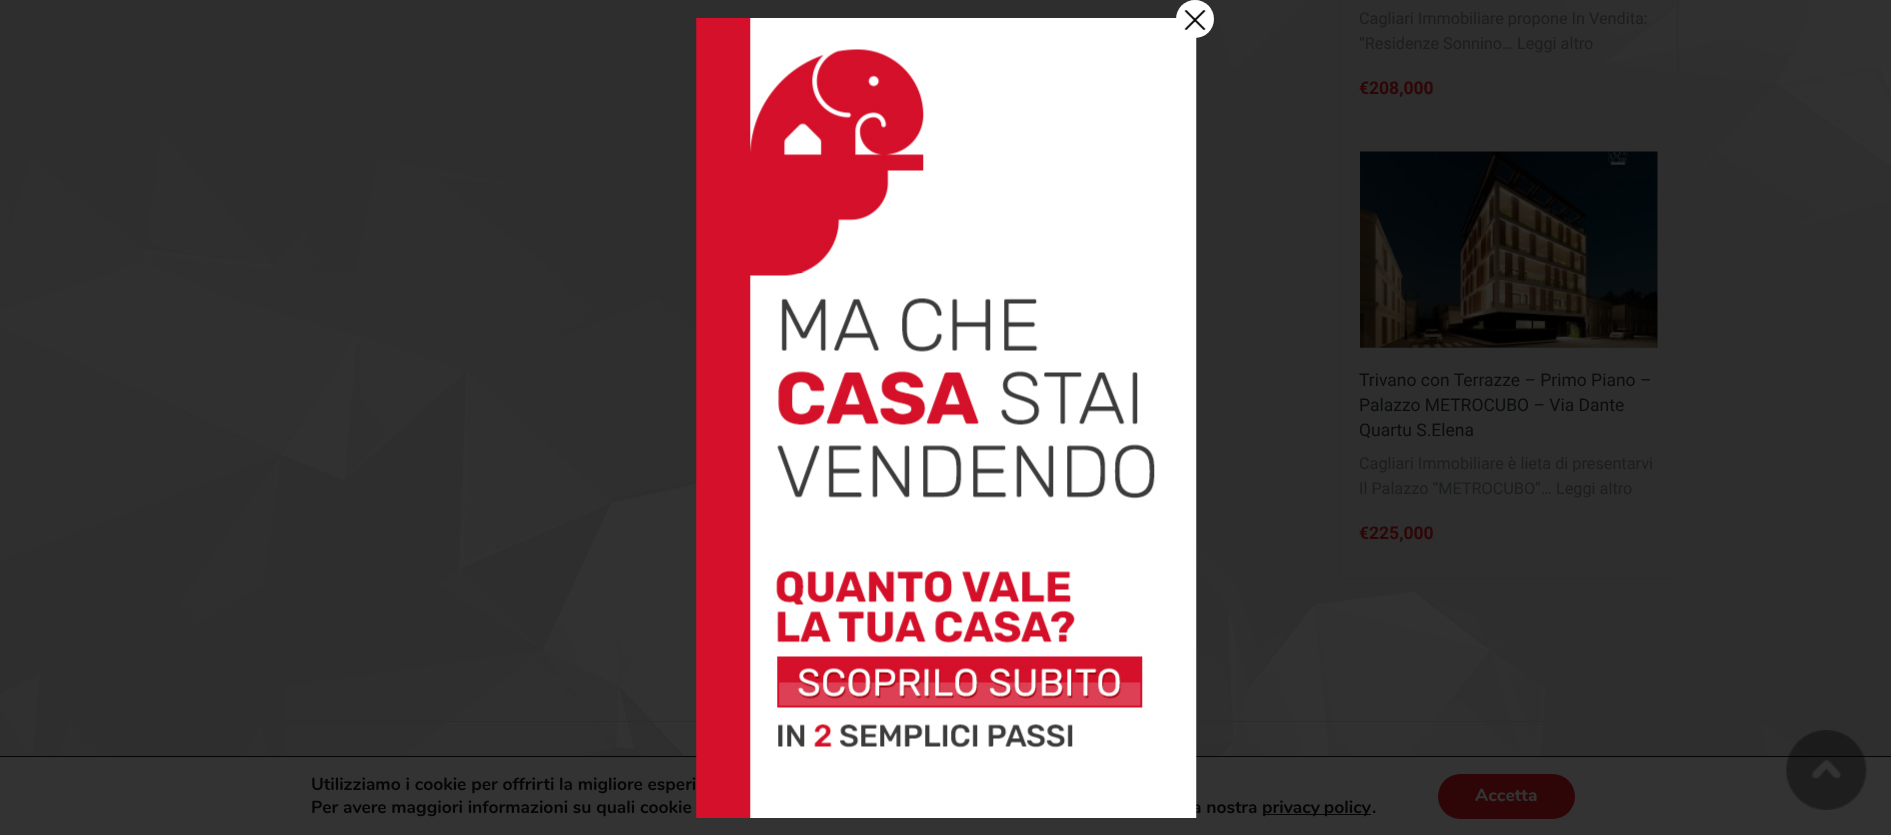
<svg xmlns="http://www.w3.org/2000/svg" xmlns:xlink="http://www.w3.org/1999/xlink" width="1891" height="835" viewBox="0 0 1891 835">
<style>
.cls-1{font:16.25px Roboto;fill:#1c1d1d}
.cls-2{font:bold 17.5px Roboto;fill:#2f0607}
.cls-3{font:17.5px Roboto;fill:#0b0d0d}
.cls-4{font:bold 17.5px Nunito;fill:#060606}
.cls-5{font:800 17.5px Nunito;fill:#333333}
</style>
<rect width="100%" height="100%" fill="#ffffff"/>
<image xlink:href="image0.png" x="0" y="0" width="1891" height="756"/>
<rect fill="none" stroke="#2c2c2c" x="1340.5" y="-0.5" width="337" height="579"/>
<image xlink:href="image3.png" x="1360" y="151" width="298" height="197"/>
<rect fill="#2c2c2c" x="286" y="721" width="1323" height="1"/>
<rect fill="#333333" x="0" y="757" width="1891" height="78"/>
<rect fill="#060606" x="0" y="756" width="1891" height="1"/>
<rect fill="#060606" x="1263" y="814" width="108" height="1"/>
<rect fill="#2f0607" x="1438" y="774" width="137" height="45" rx="22.5"/>
<image xlink:href="image4.png" x="1786" y="730" width="81" height="80"/>
<text class="cls-1"><tspan x="1359" y="24">Cagliari Immobiliare propone In Vendita:</tspan><tspan x="1359" y="49">“Residenze Sonnino…</tspan></text>
<text class="cls-1" x="1517" y="49">Leggi altro</text>
<text class="cls-2" x="1359" y="94">€208,000</text>
<text class="cls-3"><tspan x="1359" y="386">Trivano con Terrazze – Primo Piano –</tspan><tspan x="1359" y="411">Palazzo METROCUBO – Via Dante</tspan><tspan x="1359" y="436">Quartu S.Elena</tspan></text>
<text class="cls-1"><tspan x="1359" y="469">Cagliari Immobiliare è lieta di presentarvi</tspan><tspan x="1359" y="494">Il Palazzo “METROCUBO”…</tspan></text>
<text class="cls-1" x="1556" y="494">Leggi altro</text>
<text class="cls-2" x="1359" y="539">€225,000</text>
<text class="cls-4"><tspan x="311" y="790">Utilizziamo i cookie per offrirti la migliore esperi</tspan><tspan x="311" y="813">Per avere maggiori informazioni su quali cookie</tspan></text>
<text class="cls-4" x="1192" y="813">a nostra</text>
<image xlink:href="image2.png" x="696" y="18" width="501" height="800"/>
<circle fill="#ffffff" cx="1195" cy="19" r="19"/>
<image xlink:href="image1.png" x="1184" y="10" width="22" height="20"/>
<text class="cls-4" x="1262" y="813" word-spacing="-1">privacy policy</text>
<text class="cls-4" x="1372" y="813">.</text>
<text class="cls-5" x="1475" y="801">Accetta</text>
</svg>
